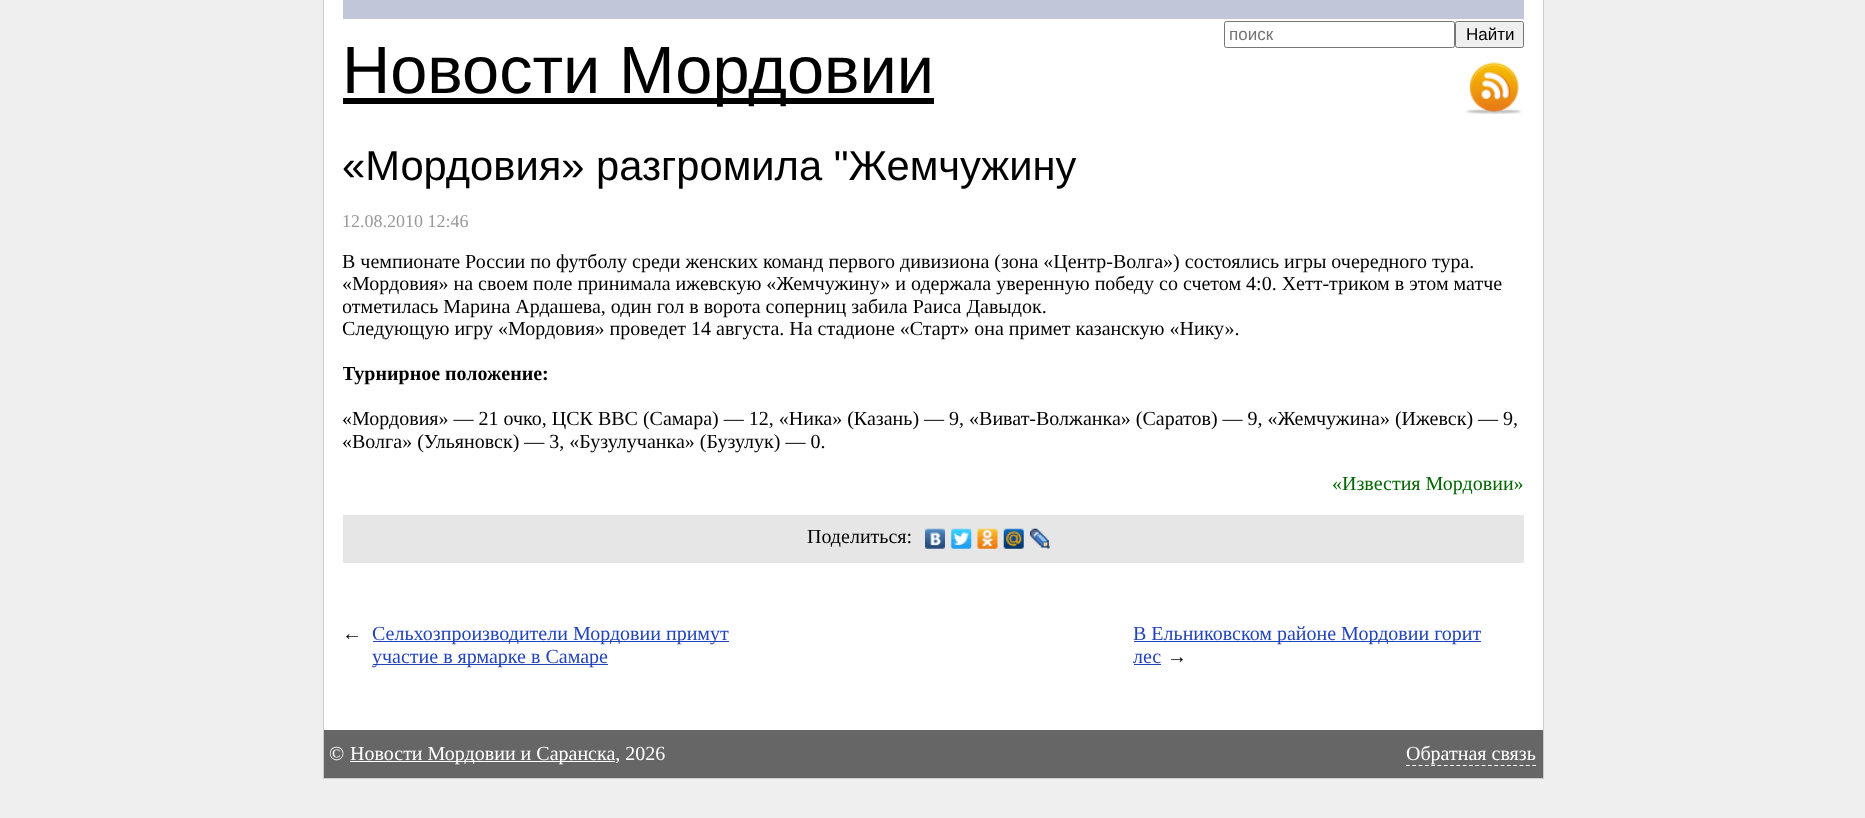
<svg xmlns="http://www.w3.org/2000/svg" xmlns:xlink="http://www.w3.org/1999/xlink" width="1865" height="818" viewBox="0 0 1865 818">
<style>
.cls-1{font:17px Liberation Sans;fill:#757575}
.cls-2{font:17px Liberation Sans;fill:#000000}
.cls-3{font:66.75px Liberation Sans;fill:#000000}
.cls-4{font:41.7px Liberation Sans;fill:#000000}
.cls-5{font:18px Liberation Serif;fill:#999999}
.cls-6{font:20px Liberation Serif;fill:#000000}
.cls-7{font:bold 20px Liberation Serif;fill:#000000}
.cls-8{font:20px Liberation Serif;fill:#006600}
.cls-9{font:20px Liberation Serif;fill:#2244bb}
.cls-10{font:20px Liberation Serif;fill:#ffffff}
</style>
<defs>
<clipPath id="clip1"><rect x="343" y="250" width="1181" height="265"/></clipPath>
</defs>
<rect width="100%" height="100%" fill="#efefef"/>
<rect fill="#ffffff" x="324" y="0" width="1219" height="730"/>
<rect fill="#cccccc" x="1543" y="0" width="1" height="779"/>
<rect fill="#cccccc" x="323" y="778" width="1221" height="1"/>
<rect fill="#cccccc" x="323" y="0" width="1" height="779"/>
<rect fill="#c1c7d8" x="343" y="0" width="1181" height="19"/>
<rect fill="none" stroke="#767676" x="1224.5" y="21.5" width="230" height="26" rx="2"/>
<rect fill="#efefef" stroke="#767676" x="1455.5" y="21.5" width="68" height="26" rx="2"/>
<rect fill="#000000" x="343" y="98" width="591" height="6"/>
<image xlink:href="image0.png" x="1466" y="62" width="56" height="52"/>
<rect fill="#e6e6e6" x="343" y="515" width="1181" height="48"/>
<image xlink:href="image1.png" x="925" y="528" width="20" height="21"/>
<image xlink:href="image2.png" x="951" y="528" width="21" height="21"/>
<image xlink:href="image3.png" x="977" y="528" width="21" height="21"/>
<image xlink:href="image4.png" x="1003" y="528" width="21" height="21"/>
<image xlink:href="image5.png" x="1030" y="528" width="20" height="21"/>
<rect fill="#2244bb" x="373" y="641" width="356" height="1"/>
<rect fill="#2244bb" x="373" y="664" width="235" height="1"/>
<rect fill="#2244bb" x="1134" y="641" width="347" height="1"/>
<rect fill="#2244bb" x="1134" y="664" width="27" height="1"/>
<rect fill="#666666" x="324" y="730" width="1219" height="48"/>
<rect fill="#ffffff" x="350" y="761" width="265" height="1"/>
<path fill="none" stroke="#ffffff" stroke-width="1.2" stroke-dasharray="3.75 2.56" d="M1406 765.5H1536"/>
<text class="cls-1" x="1229" y="40">поиск</text>
<text class="cls-2" x="1466" y="40">Найти</text>
<text class="cls-3" x="342" y="93">Новости Мордовии</text>
<text class="cls-4" x="342" y="180">«Мордовия» разгромила "Жемчужину</text>
<text class="cls-5" x="342" y="227">12.08.2010 12:46</text>
<text class="cls-6"><tspan x="342" y="268">В чемпионате России по футболу среди женских команд первого дивизиона (зона «Центр-Волга») состоялись игры очередного тура.</tspan><tspan x="342" y="290">«Мордовия» на своем поле принимала ижевскую «Жемчужину» и одержала уверенную победу со счетом 4:0. Хетт-триком в этом матче</tspan></text>
<g clip-path="url(#clip1)">
<text class="cls-6"><tspan x="342" y="313">отметилась Марина Ардашева, один гол в ворота соперниц забила Раиса Давыдок.</tspan><tspan x="342" y="335">Следующую игру «Мордовия» проведет 14 августа. На стадионе «Старт» она примет казанскую «Нику».</tspan></text>
<text class="cls-7" x="342" y="380">Турнирное положение:</text>
</g>
<text class="cls-6"><tspan x="342" y="425">«Мордовия» — 21 очко, ЦСК ВВС (Самара) — 12, «Ника» (Казань) — 9, «Виват-Волжанка» (Саратов) — 9, «Жемчужина» (Ижевск) — 9,</tspan><tspan x="342" y="448">«Волга» (Ульяновск) — 3, «Бузулучанка» (Бузулук) — 0.</tspan></text>
<text class="cls-8" x="1332" y="490">«Известия Мордовии»</text>
<text class="cls-6" x="807" y="543">Поделиться:</text>
<text class="cls-6" x="342" y="640">←</text>
<text class="cls-9"><tspan x="372" y="640">Сельхозпроизводители Мордовии примут</tspan><tspan x="372" y="663">участие в ярмарке в Самаре</tspan></text>
<text class="cls-9"><tspan x="1133" y="640">В Ельниковском районе Мордовии горит</tspan><tspan x="1133" y="663">лес</tspan></text>
<text class="cls-6" x="1167" y="663">→</text>
<text class="cls-10" x="329" y="760">©</text>
<text class="cls-10" x="350" y="760">Новости Мордовии и Саранска, 2026</text>
<text class="cls-10" x="1406" y="760">Обратная связь</text>
</svg>
